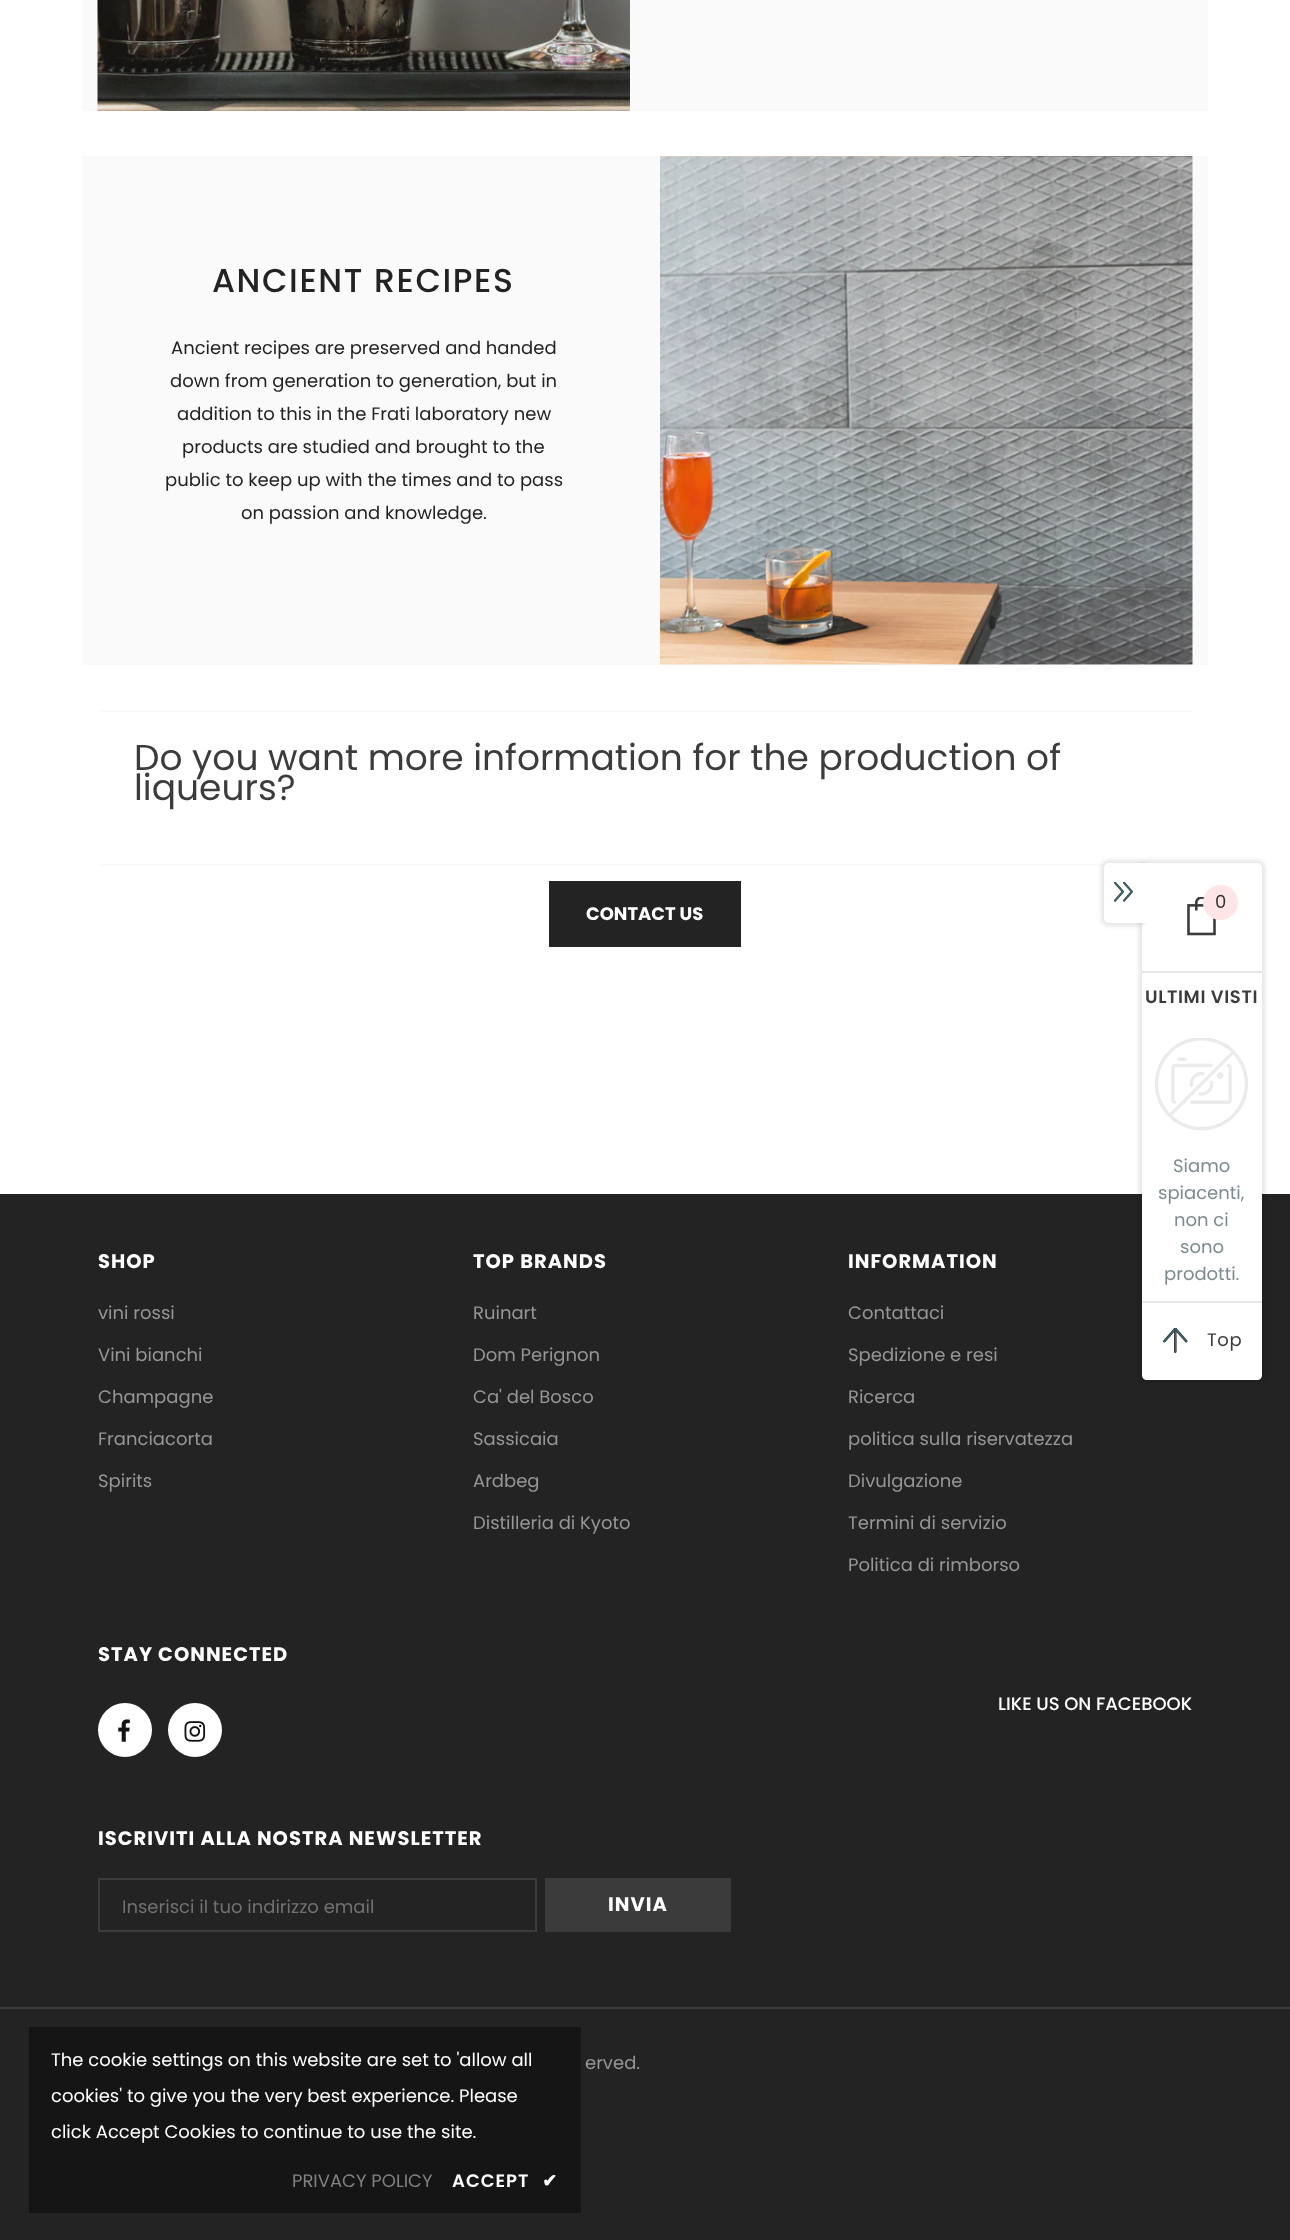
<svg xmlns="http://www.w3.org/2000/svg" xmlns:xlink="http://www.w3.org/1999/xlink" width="1290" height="2240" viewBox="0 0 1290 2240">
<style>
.cls-1{font:500 33px Poppins;letter-spacing:1.6px;fill:#232323}
.cls-2{font:18px Poppins;fill:#232323}
.cls-3{font:36px Poppins;fill:#3c3c3c}
.cls-4{font:bold 18px Poppins;fill:#ffffff}
.cls-5{font:bold 19.5px Poppins;letter-spacing:1px;fill:#ffffff}
.cls-6{font:18px Poppins;fill:#969696}
.cls-7{font:500 18px Poppins;fill:#ffffff}
.cls-8{font:18px Poppins;fill:#717171}
.cls-9{font:18px Poppins;fill:#ffffff}
.cls-10{font:18px Poppins;fill:#818181}
.cls-11{font:600 18px Poppins;letter-spacing:1px;fill:#ffffff}
.cls-12{font:bold 18px DejaVu Sans;letter-spacing:1px;fill:#ffffff}
.cls-13{font:18px Poppins;fill:#323232}
.cls-14{font:600 18px Poppins;letter-spacing:0.6px;fill:#3c3c3c}
.cls-15{font:18px Poppins;fill:#7d8b8e}
.cls-16{font:18px Poppins;letter-spacing:0.6px;fill:#3c3c3c}
</style>
<rect width="100%" height="100%" fill="#ffffff"/>
<rect fill="#fafafa" x="83" y="0" width="1125" height="111"/>
<image xlink:href="image0.png" x="97" y="0" width="533" height="111"/>
<rect fill="#fafafa" x="83" y="156" width="1125" height="509"/>
<image xlink:href="image1.png" x="660" y="156" width="533" height="509"/>
<rect fill="#fafafa" x="98" y="710" width="1095" height="2"/>
<rect fill="#fafafa" x="98" y="864" width="1008" height="2"/>
<rect fill="#232323" x="549" y="881" width="192" height="66"/>
<rect fill="#232323" x="0" y="1194" width="1290" height="1046"/>
<circle fill="#ffffff" cx="125" cy="1730" r="27"/>
<image xlink:href="image2.png" x="118" y="1719" width="12" height="23"/>
<circle fill="#ffffff" cx="195" cy="1730" r="27"/>
<image xlink:href="image3.png" x="184" y="1721" width="22" height="21"/>
<rect fill="none" stroke="#3b3b3b" stroke-width="2" x="99" y="1879" width="437" height="52"/>
<rect fill="#3b3b3b" x="545" y="1878" width="186" height="54"/>
<rect fill="#3b3b3b" x="0" y="2007" width="1290" height="2"/>
<rect fill="#141414" fill-opacity="0.9" x="29" y="2027" width="552" height="186"/>
<rect fill="#000000" fill-opacity="0.1" filter="blur(2px)" x="1139" y="860" width="126" height="523" rx="8"/>
<path fill="#ffffff" d="M1142 863H1257C1260 863 1262 865 1262 868V1375C1262 1378 1260 1380 1257 1380H1147C1144 1380 1142 1378 1142 1375Z"/>
<rect fill="#000000" fill-opacity="0.1" filter="blur(2px)" x="1101" y="860" width="45" height="66" rx="8"/>
<path fill="#ffffff" d="M1109 863H1143V923H1109C1106 923 1104 921 1104 918V868C1104 865 1106 863 1109 863Z"/>
<image xlink:href="image4.png" x="1114" y="882" width="19" height="21"/>
<rect fill="#ffffff" x="1143" y="863" width="6" height="60"/>
<rect fill="#e7e7e7" x="1142" y="971" width="120" height="2"/>
<image xlink:href="image5.png" x="1187" y="897" width="29" height="39"/>
<circle fill="#ffe5e5" cx="1220.5" cy="902.5" r="17.5"/>
<image xlink:href="image6.png" x="1155" y="1038" width="93" height="93"/>
<rect fill="#e7e7e7" x="1142" y="1301" width="120" height="2"/>
<image xlink:href="image7.png" x="1163" y="1328" width="25" height="25"/>
<text class="cls-1" x="212" y="292">ANCIENT RECIPES</text>
<text class="cls-2" x="171" y="354">Ancient recipes are preserved and handed</text>
<text class="cls-2" x="170" y="387">down from generation to generation, but in</text>
<text class="cls-2" x="177" y="420">addition to this in the Frati laboratory new</text>
<text class="cls-2" x="182" y="453">products are studied and brought to the</text>
<text class="cls-2" x="165" y="486">public to keep up with the times and to pass</text>
<text class="cls-2" x="241" y="519">on passion and knowledge.</text>
<text class="cls-3"><tspan x="134" y="770">Do you want more information for the production of</tspan><tspan x="134" y="800">liqueurs?</tspan></text>
<text class="cls-4" x="586" y="920">CONTACT US</text>
<text class="cls-5" x="98" y="1268">SHOP</text>
<text class="cls-6" x="98" y="1319">vini rossi</text>
<text class="cls-6" x="98" y="1361">Vini bianchi</text>
<text class="cls-6" x="98" y="1403">Champagne</text>
<text class="cls-6" x="98" y="1445">Franciacorta</text>
<text class="cls-6" x="98" y="1487">Spirits</text>
<text class="cls-5" x="473" y="1268">TOP BRANDS</text>
<text class="cls-6" x="473" y="1319">Ruinart</text>
<text class="cls-6" x="473" y="1361">Dom Perignon</text>
<text class="cls-6" x="473" y="1403">Ca' del Bosco</text>
<text class="cls-6" x="473" y="1445">Sassicaia</text>
<text class="cls-6" x="473" y="1487">Ardbeg</text>
<text class="cls-6" x="473" y="1529">Distilleria di Kyoto</text>
<text class="cls-5" x="848" y="1268">INFORMATION</text>
<text class="cls-6" x="848" y="1319">Contattaci</text>
<text class="cls-6" x="848" y="1361">Spedizione e resi</text>
<text class="cls-6" x="848" y="1403">Ricerca</text>
<text class="cls-6" x="848" y="1445">politica sulla riservatezza</text>
<text class="cls-6" x="848" y="1487">Divulgazione</text>
<text class="cls-6" x="848" y="1529">Termini di servizio</text>
<text class="cls-6" x="848" y="1571">Politica di rimborso</text>
<text class="cls-5" x="98" y="1661">STAY CONNECTED</text>
<text class="cls-7" x="998" y="1710">LIKE US ON FACEBOOK</text>
<text class="cls-5" x="98" y="1845">ISCRIVITI ALLA NOSTRA NEWSLETTER</text>
<text class="cls-8" x="122" y="1913">Inserisci il tuo indirizzo email</text>
<text class="cls-5" x="608" y="1911">INVIA</text>
<text class="cls-6" x="585" y="2069">erved.</text>
<text class="cls-9" x="51" y="2066">The cookie settings on this website are set to 'allow all</text>
<text class="cls-9" x="51" y="2102">cookies' to give you the very best experience. Please</text>
<text class="cls-9" x="51" y="2138">click Accept Cookies to continue to use the site.</text>
<text class="cls-10" x="292" y="2187">PRIVACY POLICY</text>
<text class="cls-11" x="452" y="2187">ACCEPT</text>
<text class="cls-12" x="542" y="2187">✔</text>
<text class="cls-13" x="1215" y="908">0</text>
<text class="cls-14" x="1145" y="1003">ULTIMI VISTI</text>
<text class="cls-15" x="1173" y="1172">Siamo</text>
<text class="cls-15" x="1158" y="1199">spiacenti,</text>
<text class="cls-15" x="1174" y="1226">non ci</text>
<text class="cls-15" x="1180" y="1253">sono</text>
<text class="cls-15" x="1164" y="1280">prodotti.</text>
<text class="cls-16" x="1207" y="1346">Top</text>
</svg>
